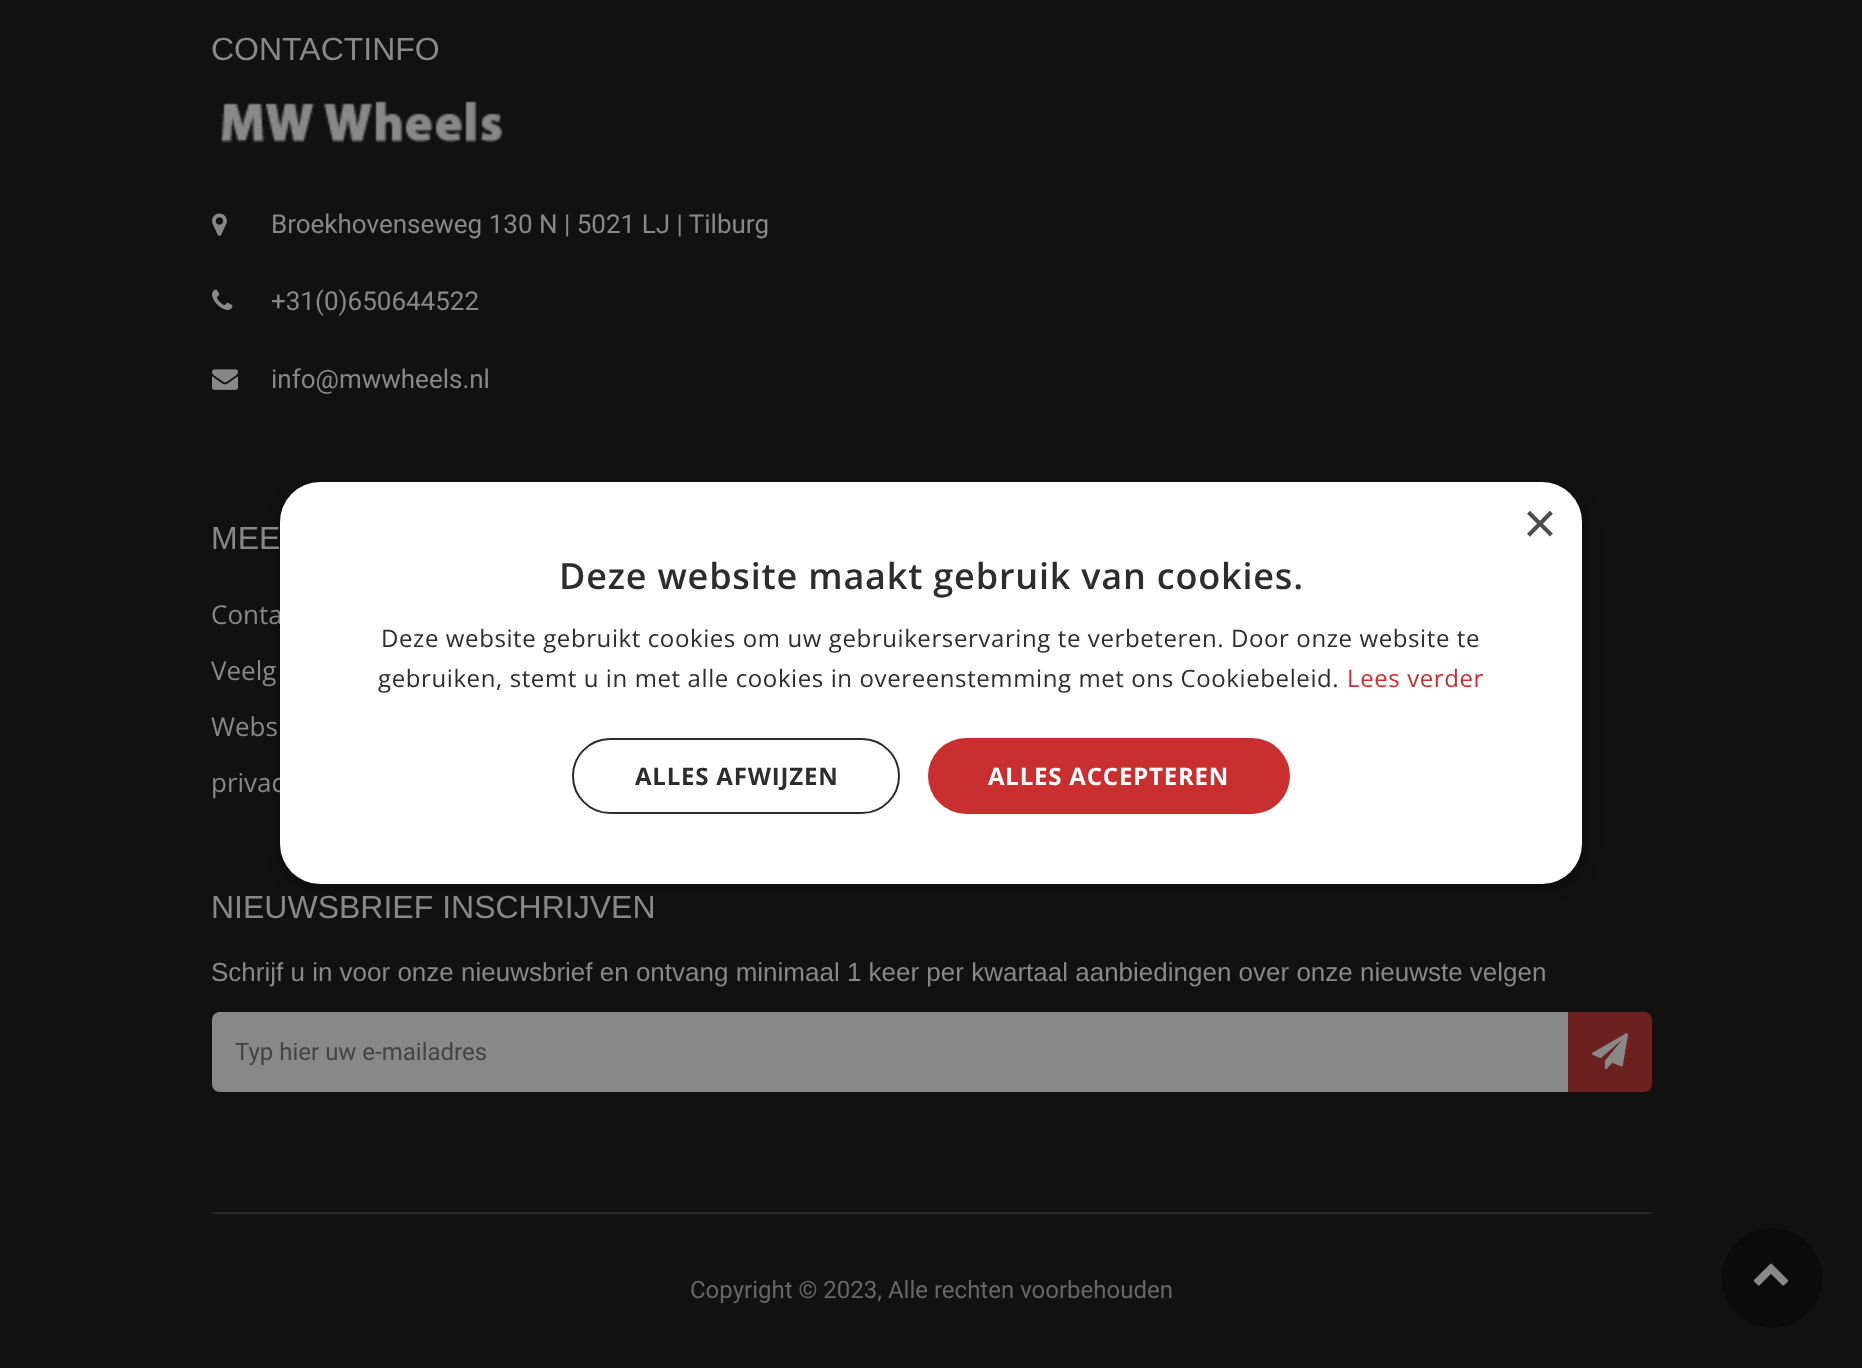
<svg xmlns="http://www.w3.org/2000/svg" xmlns:xlink="http://www.w3.org/1999/xlink" width="1862" height="1368" viewBox="0 0 1862 1368">
<style>
.cls-1{font:32px Liberation Sans;fill:#888888}
.cls-2{font:26px Roboto;fill:#888888}
.cls-3{font:26px Open Sans;fill:#888888}
.cls-4{font:26px Liberation Sans;fill:#888888}
.cls-5{font:24px Roboto;fill:#444444}
.cls-6{font:24px Roboto;fill:#676767}
.cls-7{font:58px Liberation Sans;fill:#4d4d4d}
.cls-8{font:600 36px Open Sans;letter-spacing:0.8px;fill:#2d2d2d}
.cls-9{font:24px Open Sans;letter-spacing:0.6px;fill:#2d2d2d}
.cls-10{font:24px Open Sans;letter-spacing:0.6px;fill:#c92f2f}
.cls-11{font:bold 24px Open Sans;letter-spacing:0.8px;fill:#2d2d2d}
.cls-12{font:bold 24px Open Sans;letter-spacing:0.8px;fill:#ffffff}
</style>
<rect width="100%" height="100%" fill="#111111"/>
<image xlink:href="image0.png" x="221" y="101" width="282" height="42"/>
<image xlink:href="image1.png" x="212" y="213" width="15" height="23"/>
<image xlink:href="image2.png" x="212" y="289" width="21" height="21"/>
<image xlink:href="image3.png" x="212" y="369" width="26" height="21"/>
<path fill="#888888" d="M220 1012H1568V1092H220C215.5 1092 212 1088.5 212 1084V1020C212 1015.5 215.5 1012 220 1012Z"/>
<path fill="#6d2020" d="M1568 1012H1644C1648.5 1012 1652 1015.5 1652 1020V1084C1652 1088.5 1648.5 1092 1644 1092H1568Z"/>
<image xlink:href="image4.png" x="1592" y="1033" width="36" height="37"/>
<rect fill="#292929" x="212" y="1212" width="1440" height="2"/>
<rect fill="#000000" fill-opacity="0.35" filter="blur(8px)" x="282" y="486" width="1302" height="402" rx="40"/>
<circle fill="#0b0b0b" cx="1772" cy="1278" r="50"/>
<image xlink:href="image5.png" x="1753" y="1263" width="36" height="23"/>
<text class="cls-1" x="211" y="60">CONTACTINFO</text>
<text class="cls-2" x="271" y="233">Broekhovenseweg 130 N | 5021 LJ | Tilburg</text>
<text class="cls-2" x="271" y="310">+31(0)650644522</text>
<text class="cls-2" x="271" y="388">info@mwwheels.nl</text>
<text class="cls-1" x="211" y="549">MEE</text>
<text class="cls-3" x="211" y="624">Conta</text>
<text class="cls-3" x="211" y="680">Veelg</text>
<text class="cls-3" x="211" y="736">Webs</text>
<text class="cls-3" x="211" y="792">privac</text>
<text class="cls-1" x="211" y="918">NIEUWSBRIEF INSCHRIJVEN</text>
<text class="cls-4" x="211" y="981">Schrijf u in voor onze nieuwsbrief en ontvang minimaal 1 keer per kwartaal aanbiedingen over onze nieuwste velgen</text>
<text class="cls-5" x="235" y="1060">Typ hier uw e-mailadres</text>
<text class="cls-6" x="690" y="1298">Copyright © 2023, Alle rechten voorbehouden</text>
<rect fill="#ffffff" x="280" y="482" width="1302" height="402" rx="40"/>
<text class="cls-7" x="1523" y="543">×</text>
<text class="cls-8" x="559" y="589">Deze website maakt gebruik van cookies.</text>
<text class="cls-9" x="381" y="647">Deze website gebruikt cookies om uw gebruikerservaring te verbeteren. Door onze website te</text>
<text class="cls-9" x="378" y="687">gebruiken, stemt u in met alle cookies in overeenstemming met ons Cookiebeleid.</text>
<text class="cls-10" x="1347" y="687">Lees verder</text>
<rect fill="none" stroke="#2d2d2d" stroke-width="2" x="573" y="739" width="326" height="74" rx="37"/>
<text class="cls-11" x="635" y="785">ALLES AFWIJZEN</text>
<rect fill="#c92f2f" x="928" y="738" width="362" height="76" rx="38"/>
<text class="cls-12" x="988" y="785">ALLES ACCEPTEREN</text>
</svg>
